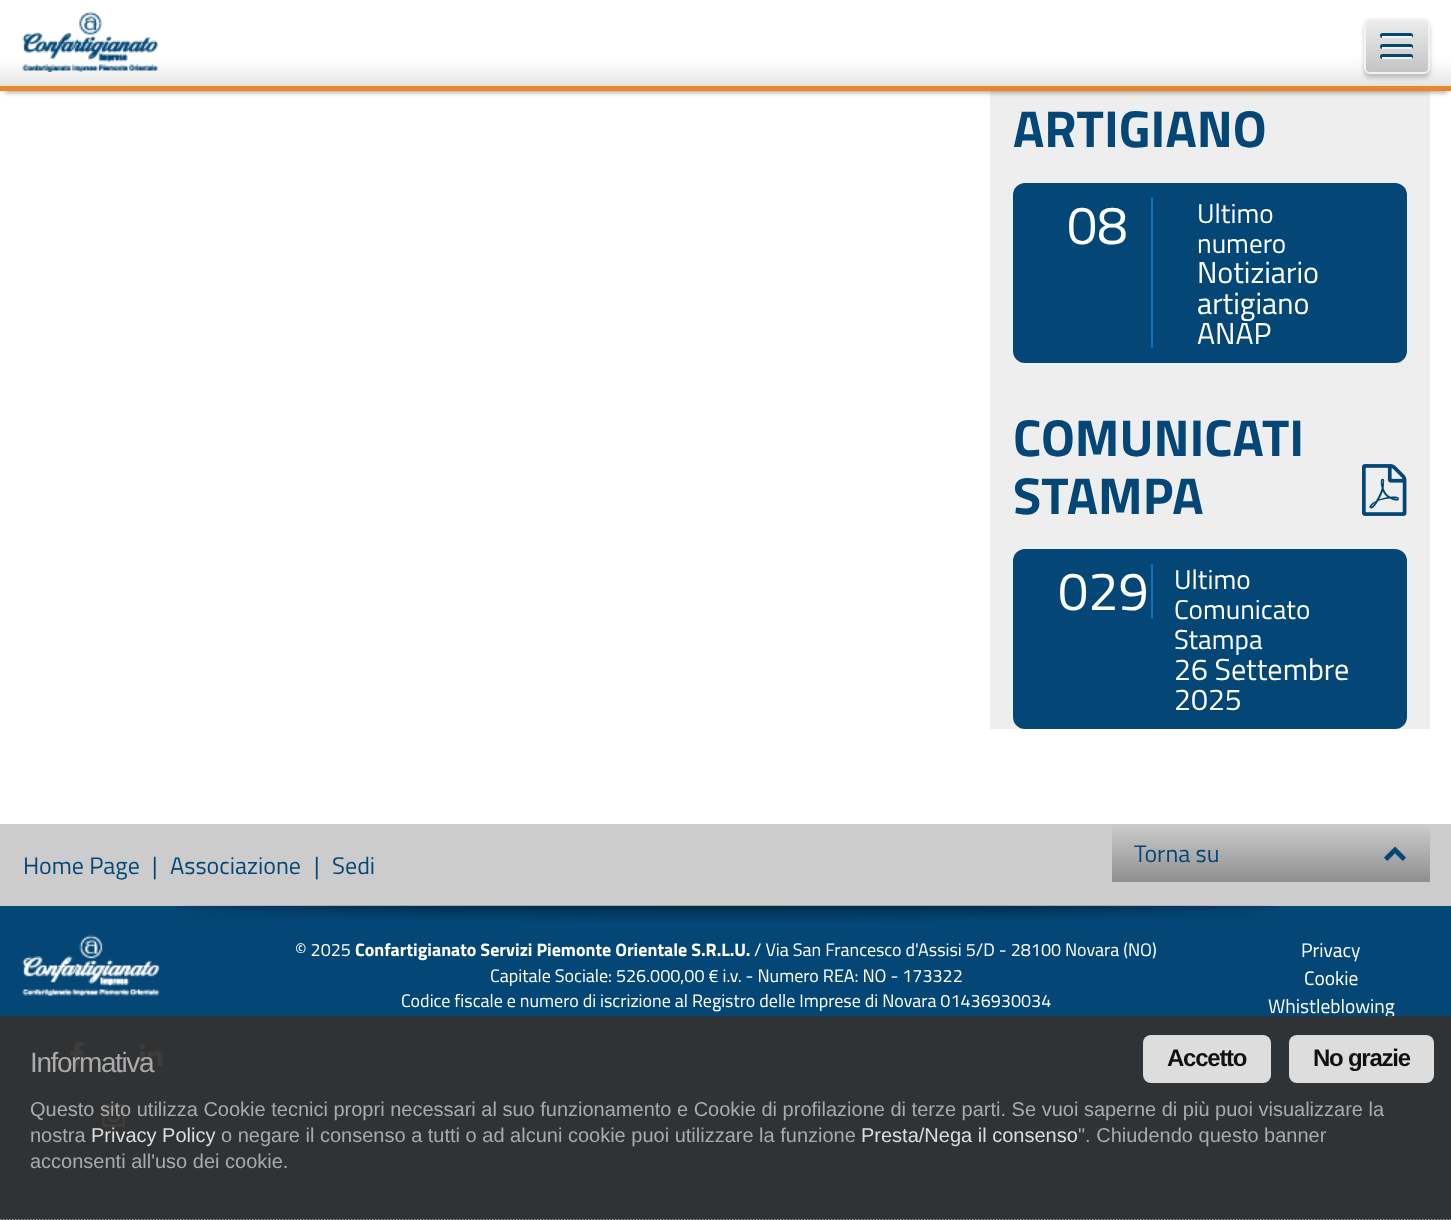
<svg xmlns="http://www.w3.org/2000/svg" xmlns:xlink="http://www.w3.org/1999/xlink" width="1451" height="1220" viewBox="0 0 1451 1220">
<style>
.cls-1{font:bold 52px Titillium Web;fill:#044776}
.cls-2{font:54px Titillium Web;fill:#ffffff}
.cls-3{font:27.25px Titillium Web;fill:#ffffff}
.cls-4{font:30.25px Titillium Web;fill:#ffffff}
.cls-5{font:24px Titillium Web;fill:#044776}
.cls-6{font:18px Titillium Web;fill:#ffffff}
.cls-7{font:bold 18px Titillium Web;fill:#ffffff}
.cls-8{font:19.5px Titillium Web;fill:#ffffff}
.cls-9{font:28px Liberation Sans;letter-spacing:-1.4px;fill:#aaaaaa}
.cls-10{font:bold 24px Liberation Sans;letter-spacing:-1.25px;fill:#111111}
.cls-11{font:20px Liberation Sans;fill:#aaaaaa}
.cls-12{font:20px Liberation Sans;fill:#dddddd}
</style>
<defs>
<linearGradient id="g1" gradientUnits="userSpaceOnUse" x1="726" y1="0" x2="726" y2="86"><stop offset="0" stop-color="#ffffff"/><stop offset="0.64" stop-color="#ffffff"/><stop offset="0.79" stop-color="#f7f7f7"/><stop offset="1" stop-color="#e4e4e4"/></linearGradient>
<clipPath id="clip1"><rect x="1364" y="18" width="66" height="56" rx="6"/></clipPath>
<linearGradient id="g2" gradientUnits="userSpaceOnUse" x1="1397" y1="19" x2="1397" y2="72"><stop offset="0" stop-color="#ededed"/><stop offset="1" stop-color="#c4c4c6"/></linearGradient>
<linearGradient id="g3" gradientUnits="userSpaceOnUse" x1="1271" y1="824" x2="1271" y2="882"><stop offset="0" stop-color="#cccccc"/><stop offset="1" stop-color="#8f8f8f"/></linearGradient>
</defs>
<rect width="100%" height="100%" fill="#044776"/>
<rect fill="#ffffff" x="0" y="91" width="1451" height="733"/>
<rect fill="#eeeeee" x="990" y="91" width="440" height="638"/>
<rect fill="#000000" fill-opacity="0.3" filter="blur(2px)" x="5" y="12" width="1443" height="81"/>
<rect fill="url(#g1)" x="0" y="0" width="1451" height="86"/>
<rect fill="#ea8727" x="0" y="86" width="1451" height="5"/>
<image xlink:href="image0.png" x="22" y="12" width="136" height="60"/>
<rect fill="#000000" fill-opacity="0.2" filter="blur(2px)" x="1364" y="23" width="66" height="55" rx="6"/>
<g clip-path="url(#clip1)">
<rect fill="url(#g2)" x="1364" y="20" width="66" height="52"/>
</g>
<rect fill="none" stroke="#f2f2f2" stroke-width="2" x="1365" y="19" width="64" height="54" rx="5"/>
<rect fill="#044776" x="1380" y="33" width="33" height="5" rx="2.5"/>
<rect fill="#f2f2f2" x="1382" y="36" width="30" height="2"/>
<rect fill="#044776" x="1380" y="44" width="33" height="5" rx="2.5"/>
<rect fill="#f2f2f2" x="1382" y="47" width="30" height="2"/>
<rect fill="#044776" x="1380" y="54" width="33" height="5" rx="2.5"/>
<rect fill="#f2f2f2" x="1382" y="57" width="30" height="2"/>
<rect fill="#044776" x="1013" y="183" width="394" height="180" rx="12"/>
<rect fill="#0774c0" x="1151" y="198" width="2" height="150"/>
<image xlink:href="image1.png" x="1362" y="464" width="45" height="52"/>
<rect fill="#044776" x="1013" y="549" width="394" height="180" rx="12"/>
<rect fill="#0774c0" x="1151" y="564" width="2" height="54"/>
<rect fill="#cccccc" x="0" y="824" width="1451" height="82"/>
<rect fill="url(#g3)" x="1112" y="826" width="318" height="56"/>
<image xlink:href="image2.png" x="1384" y="846" width="22" height="15"/>
<image xlink:href="image3.png" x="176" y="905" width="1100" height="17"/>
<image xlink:href="image4.png" x="22" y="935" width="138" height="61"/>
<circle fill="#042740" cx="77" cy="1056" r="30"/>
<image xlink:href="image5.png" x="70" y="1041" width="14" height="26"/>
<circle fill="#042740" cx="152" cy="1056" r="30"/>
<image xlink:href="image6.png" x="139" y="1044" width="24" height="23"/>
<circle fill="#042740" cx="114" cy="1116" r="30"/>
<image xlink:href="image7.png" x="102" y="1103" width="24" height="24"/>
<text class="cls-1" x="1013" y="147">ARTIGIANO</text>
<text class="cls-2" x="1067" y="244">08</text>
<text class="cls-3"><tspan x="1197" y="223">Ultimo</tspan><tspan x="1197" y="253">numero</tspan></text>
<text class="cls-4"><tspan x="1197" y="283">Notiziario</tspan><tspan x="1197" y="314">artigiano</tspan><tspan x="1197" y="344">ANAP</tspan></text>
<text class="cls-1"><tspan x="1013" y="456">COMUNICATI</tspan><tspan x="1013" y="514">STAMPA</tspan></text>
<text class="cls-2" x="1058" y="610">029</text>
<text class="cls-3"><tspan x="1174" y="589">Ultimo</tspan><tspan x="1174" y="619">Comunicato</tspan><tspan x="1174" y="649">Stampa</tspan></text>
<text class="cls-4"><tspan x="1174" y="680">26 Settembre</tspan><tspan x="1174" y="710">2025</tspan></text>
<text class="cls-5" x="1134" y="862">Torna su</text>
<text class="cls-5" x="23" y="874">Home Page</text>
<text class="cls-5" x="152" y="874">|</text>
<text class="cls-5" x="170" y="874">Associazione</text>
<text class="cls-5" x="314" y="874">|</text>
<text class="cls-5" x="332" y="874">Sedi</text>
<text class="cls-6" x="295" y="956">© 2025</text>
<text class="cls-7" x="355" y="956">Confartigianato Servizi Piemonte Orientale S.R.L.U.</text>
<text class="cls-6" x="754" y="956">/ Via San Francesco d'Assisi 5/D - 28100 Novara (NO)</text>
<text class="cls-6" x="490" y="982">Capitale Sociale: 526.000,00 € i.v. - Numero REA: NO - 173322</text>
<text class="cls-6" x="401" y="1007">Codice fiscale e numero di iscrizione al Registro delle Imprese di Novara 01436930034</text>
<text class="cls-8" x="1301" y="957">Privacy</text>
<text class="cls-8" x="1304" y="985">Cookie</text>
<text class="cls-8" x="1268" y="1013">Whistleblowing</text>
<rect fill="#333333" fill-opacity="0.95" x="0" y="1016" width="1451" height="204"/>
<path fill="none" stroke="#cccccc" stroke-width="1.5" stroke-dasharray="1.5 1.5" d="M0 1220H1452"/>
<text class="cls-9" x="30" y="1072">Informativa</text>
<rect fill="#dddddd" x="1143" y="1035" width="128" height="48" rx="8"/>
<text class="cls-10" x="1167" y="1066">Accetto</text>
<rect fill="#dddddd" x="1289" y="1035" width="145" height="48" rx="8"/>
<text class="cls-10" x="1313" y="1066">No grazie</text>
<text class="cls-11"><tspan x="30" y="1116">Questo sito utilizza Cookie tecnici propri necessari al suo funzionamento e Cookie di profilazione di terze parti. Se vuoi saperne di più puoi visualizzare la</tspan><tspan x="30" y="1142">nostra</tspan></text>
<text class="cls-12" x="91" y="1142">Privacy Policy</text>
<text class="cls-11" x="221" y="1142">o negare il consenso a tutti o ad alcuni cookie puoi utilizzare la funzione</text>
<text class="cls-12" x="861" y="1142">Presta/Nega il consenso</text>
<text class="cls-11" x="1078" y="1142">". Chiudendo questo banner</text>
<text class="cls-11" x="30" y="1168">acconsenti all'uso dei cookie.</text>
</svg>
